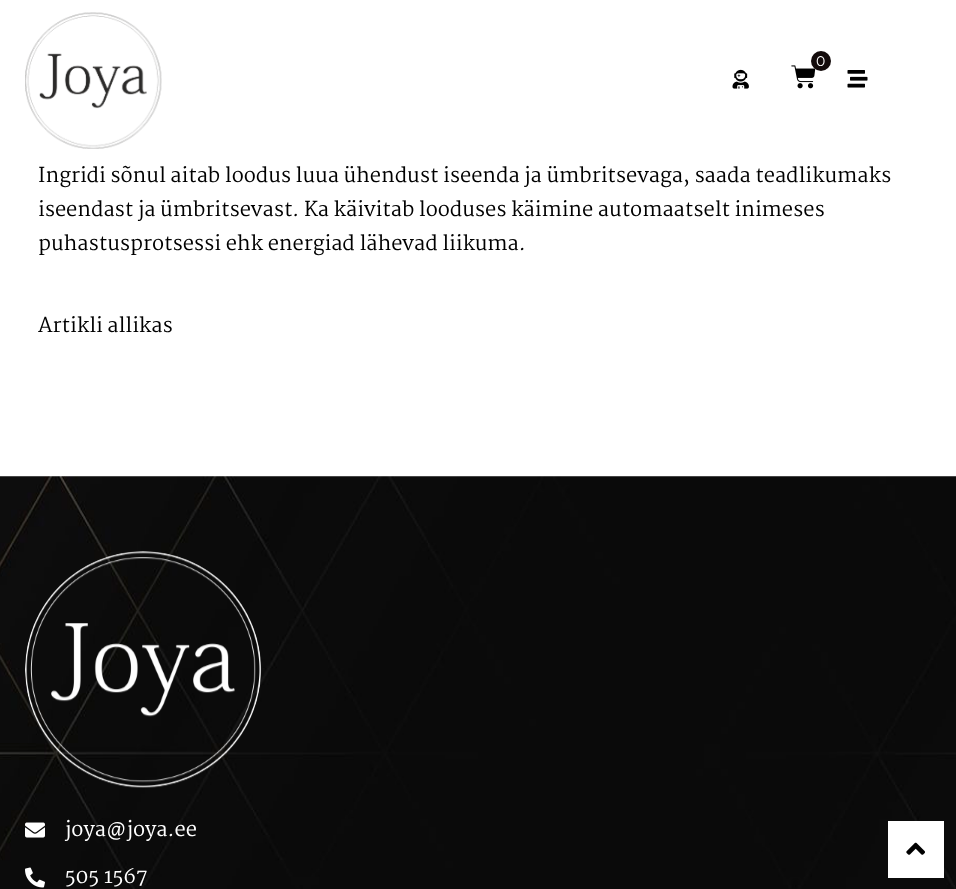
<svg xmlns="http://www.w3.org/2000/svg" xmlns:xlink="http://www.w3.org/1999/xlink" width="956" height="889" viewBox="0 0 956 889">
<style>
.cls-1{font:14px Montserrat;fill:#ffffff}
.cls-2{font:20px Martel;fill:#000000}
.cls-3{font:20px Martel;fill:#ffffff}
</style>
<rect width="100%" height="100%" fill="#ffffff"/>
<image xlink:href="image0.png" x="25" y="12" width="137" height="137"/>
<image xlink:href="image1.png" x="791" y="65" width="25" height="24"/>
<circle fill="#130b0b" cx="821" cy="61" r="10"/>
<image xlink:href="image2.png" x="732" y="69" width="17" height="20"/>
<image xlink:href="image3.png" x="847" y="70" width="21" height="18"/>
<image xlink:href="image4.png" x="0" y="476" width="956" height="413"/>
<image xlink:href="image5.png" x="25" y="551" width="237" height="237"/>
<image xlink:href="image6.png" x="25" y="822" width="20" height="16"/>
<image xlink:href="image7.png" x="25" y="867" width="20" height="21"/>
<rect fill="#ffffff" x="888" y="821" width="56" height="57"/>
<image xlink:href="image8.png" x="906" y="842" width="19" height="13"/>
<text class="cls-1" x="816" y="66">0</text>
<text class="cls-2"><tspan x="38" y="182">Ingridi sõnul aitab loodus luua ühendust iseenda ja ümbritsevaga, saada teadlikumaks</tspan><tspan x="38" y="216">iseendast ja ümbritsevast. Ka käivitab looduses käimine automaatselt inimeses</tspan><tspan x="38" y="250">puhastusprotsessi ehk energiad lähevad liikuma.</tspan></text>
<text class="cls-2" x="38" y="332">Artikli allikas</text>
<text class="cls-3" x="65" y="836">joya@joya.ee</text>
<text class="cls-3" x="65" y="883">505 1567</text>
</svg>
